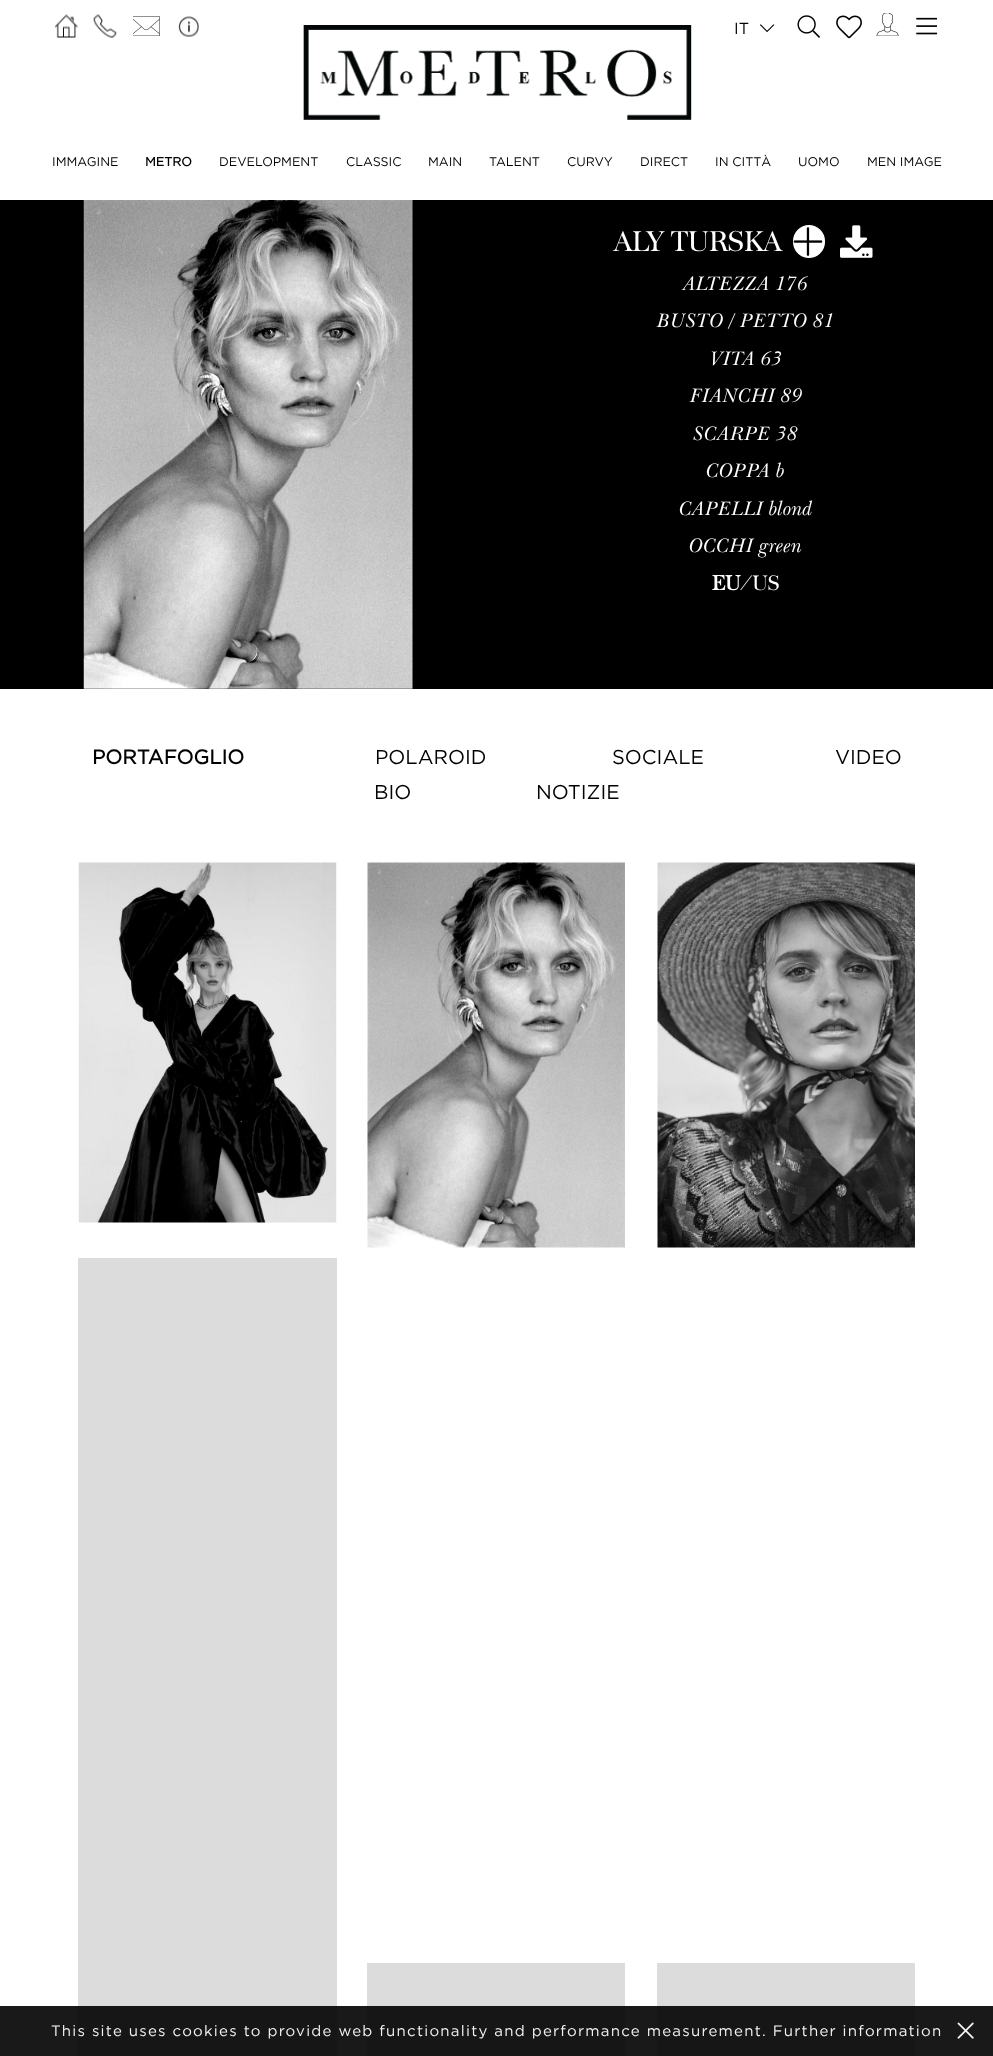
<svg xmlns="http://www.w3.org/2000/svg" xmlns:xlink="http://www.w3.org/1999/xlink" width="993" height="2056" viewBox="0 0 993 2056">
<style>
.cls-1{font:16px Gotham;fill:#000000}
.cls-2{font:12.5px Gotham;fill:#000000}
.cls-3{font:bold 12.5px Gotham;fill:#000000}
.cls-4{font:27.5px Baskerville;fill:#ffffff}
.cls-5{font:italic 20px Baskerville;fill:#ffffff}
.cls-6{font:bold 20px Baskerville;fill:#ffffff}
.cls-7{font:20px Baskerville;fill:#ffffff}
.cls-8{font:bold 20px Gotham;fill:#000000}
.cls-9{font:20px Gotham;fill:#000000}
.cls-10{font:15px Gotham;letter-spacing:1.25px;fill:#f2f2f2}
</style>
<rect width="100%" height="100%" fill="#ffffff"/>
<rect fill="#191919" x="0" y="2006" width="993" height="50"/>
<image xlink:href="image0.png" x="55" y="14" width="23" height="24"/>
<image xlink:href="image1.png" x="93" y="14" width="24" height="24"/>
<image xlink:href="image2.png" x="133" y="16" width="27" height="20"/>
<image xlink:href="image3.png" x="178" y="16" width="21" height="21"/>
<image xlink:href="image4.png" x="303" y="25" width="389" height="95"/>
<image xlink:href="image5.png" x="760" y="24" width="15" height="8"/>
<image xlink:href="image6.png" x="797" y="15" width="23" height="23"/>
<image xlink:href="image7.png" x="836" y="15" width="26" height="24"/>
<image xlink:href="image8.png" x="876" y="13" width="23" height="23"/>
<image xlink:href="image9.png" x="916" y="17" width="22" height="18"/>
<rect fill="#000000" x="0" y="200" width="993" height="489"/>
<image xlink:href="image10.png" x="83" y="200" width="330" height="489"/>
<rect fill="#ffffff" x="793" y="225" width="32" height="33" rx="16"/>
<image xlink:href="image11.png" x="793" y="227" width="30" height="29"/>
<image xlink:href="image12.png" x="840" y="225" width="33" height="33"/>
<image xlink:href="image13.png" x="78" y="862" width="259" height="361"/>
<image xlink:href="image14.png" x="367" y="862" width="258" height="386"/>
<image xlink:href="image15.png" x="657" y="862" width="258" height="386"/>
<rect fill="#dcdcdc" x="78" y="1258" width="259" height="748"/>
<rect fill="#161616" x="78" y="2006" width="259" height="50"/>
<rect fill="#dcdcdc" x="367" y="1963" width="258" height="43"/>
<rect fill="#161616" x="367" y="2006" width="258" height="50"/>
<rect fill="#dcdcdc" x="657" y="1963" width="258" height="43"/>
<rect fill="#161616" x="657" y="2006" width="258" height="50"/>
<image xlink:href="image16.png" x="957" y="2022" width="17" height="17"/>
<text class="cls-1" x="734" y="34">IT</text>
<text class="cls-2" x="52" y="166">IMMAGINE</text>
<text class="cls-3" x="145" y="166">METRO</text>
<text class="cls-2" x="219" y="166">DEVELOPMENT</text>
<text class="cls-2" x="346" y="166">CLASSIC</text>
<text class="cls-2" x="428" y="166">MAIN</text>
<text class="cls-2" x="489" y="166">TALENT</text>
<text class="cls-2" x="567" y="166">CURVY</text>
<text class="cls-2" x="640" y="166">DIRECT</text>
<text class="cls-2" x="715" y="166">IN CITTÀ</text>
<text class="cls-2" x="798" y="166">UOMO</text>
<text class="cls-2" x="867" y="166">MEN IMAGE</text>
<text class="cls-4" x="614" y="251">ALY TURSKA</text>
<text class="cls-5" x="683" y="290">ALTEZZA 176</text>
<text class="cls-5" x="657" y="327">BUSTO / PETTO 81</text>
<text class="cls-5" x="710" y="365">VITA 63</text>
<text class="cls-5" x="690" y="402">FIANCHI 89</text>
<text class="cls-5" x="693" y="440">SCARPE 38</text>
<text class="cls-5" x="706" y="477">COPPA b</text>
<text class="cls-5" x="679" y="515">CAPELLI blond</text>
<text class="cls-5" x="689" y="552">OCCHI green</text>
<text class="cls-6" x="712" y="590">EU</text>
<text class="cls-7" x="740" y="590">/US</text>
<text class="cls-8" x="92" y="764">PORTAFOGLIO</text>
<text class="cls-9" x="375" y="764">POLAROID</text>
<text class="cls-9" x="612" y="764">SOCIALE</text>
<text class="cls-9" x="835" y="764">VIDEO</text>
<text class="cls-9" x="374" y="799">BIO</text>
<text class="cls-9" x="536" y="799">NOTIZIE</text>
<text class="cls-10" x="51" y="2036">This site uses cookies to provide web functionality and performance measurement. Further information</text>
</svg>
